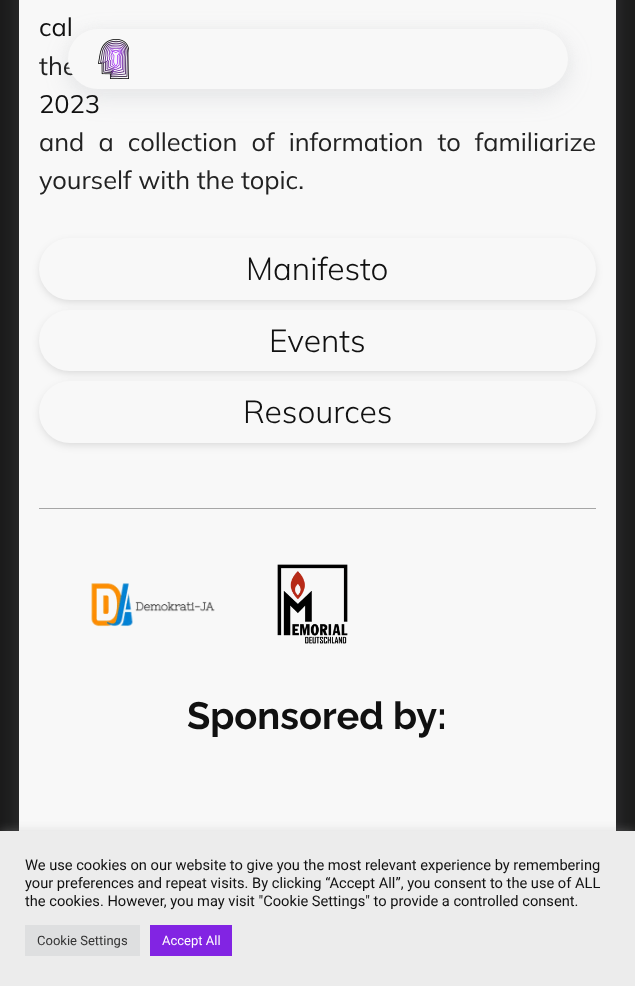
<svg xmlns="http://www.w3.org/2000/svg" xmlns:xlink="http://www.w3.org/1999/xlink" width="635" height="986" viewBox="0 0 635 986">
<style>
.cls-1{font:25.4px Mulish;fill:#111111}
.cls-2{font:25.4px Mulish;fill:#222222}
.cls-3{font:300 31.75px Mulish;fill:#111111}
.cls-4{font:bold 38px Raleway;fill:#111111}
.cls-5{font:14.65px Roboto;fill:#111111}
.cls-6{font:13px Roboto;fill:#333333}
.cls-7{font:13px Roboto;fill:#ffffff}
</style>
<rect width="100%" height="100%" fill="#1a1a1a"/>
<rect fill="#959da5" fill-opacity="0.2" filter="blur(12px)" x="19" y="-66" width="597" height="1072" rx="30"/>
<rect fill="#f8f8f8" x="19" y="0" width="597" height="831"/>
<rect fill="#959da5" fill-opacity="0.2" filter="blur(12px)" x="68" y="37" width="500" height="60" rx="30"/>
<rect fill="#ececec" fill-opacity="0.5" filter="blur(5px)" x="68" y="29" width="500" height="60" rx="30"/>
<rect fill="#000000" fill-opacity="0.15" filter="blur(5px)" x="41" y="243" width="553" height="58" rx="29"/>
<rect fill="#f8f8f8" x="39" y="238" width="557" height="62" rx="31"/>
<rect fill="#000000" fill-opacity="0.15" filter="blur(5px)" x="41" y="315" width="553" height="57" rx="28.5"/>
<rect fill="#f8f8f8" x="39" y="310" width="557" height="61" rx="30.5"/>
<rect fill="#000000" fill-opacity="0.15" filter="blur(5px)" x="41" y="386" width="553" height="58" rx="29"/>
<rect fill="#f8f8f8" x="39" y="381" width="557" height="62" rx="31"/>
<rect fill="#a6a6a6" x="39" y="508" width="557" height="1"/>
<image xlink:href="image1.png" x="91" y="583" width="124" height="44"/>
<image xlink:href="image2.png" x="277" y="564" width="71" height="80"/>
<rect fill="#acabab" fill-opacity="0.3" filter="blur(5px)" x="0" y="830" width="635" height="155"/>
<rect fill="#ececec" x="0" y="831" width="635" height="155"/>
<rect fill="#dedfe0" x="25" y="925" width="115" height="31"/>
<rect fill="#8224e3" x="150" y="925" width="82" height="31"/>
<text class="cls-1" x="39" y="36">cal</text>
<text class="cls-2" x="39" y="75">the</text>
<rect fill="#f8f8f8" x="68" y="29" width="500" height="60" rx="30"/>
<image xlink:href="image0.png" x="98" y="39" width="31" height="40"/>
<text class="cls-1" x="39" y="113">2023</text>
<text class="cls-2"><tspan x="39" y="151" word-spacing="7.5">and a collection of information to familiarize</tspan><tspan x="39" y="189">yourself with the topic.</tspan></text>
<text class="cls-3" x="246" y="280">Manifesto</text>
<text class="cls-3" x="269" y="352">Events</text>
<text class="cls-3" x="243" y="423">Resources</text>
<text class="cls-4" x="187" y="729">Sponsored by:</text>
<text class="cls-5"><tspan x="25" y="870">We use cookies on our website to give you the most relevant experience by remembering</tspan><tspan x="25" y="888">your preferences and repeat visits. By clicking “Accept All”, you consent to the use of ALL</tspan><tspan x="25" y="906">the cookies. However, you may visit "Cookie Settings" to provide a controlled consent.</tspan></text>
<text class="cls-6" x="37" y="945">Cookie Settings</text>
<text class="cls-7" x="162" y="945">Accept All</text>
</svg>
